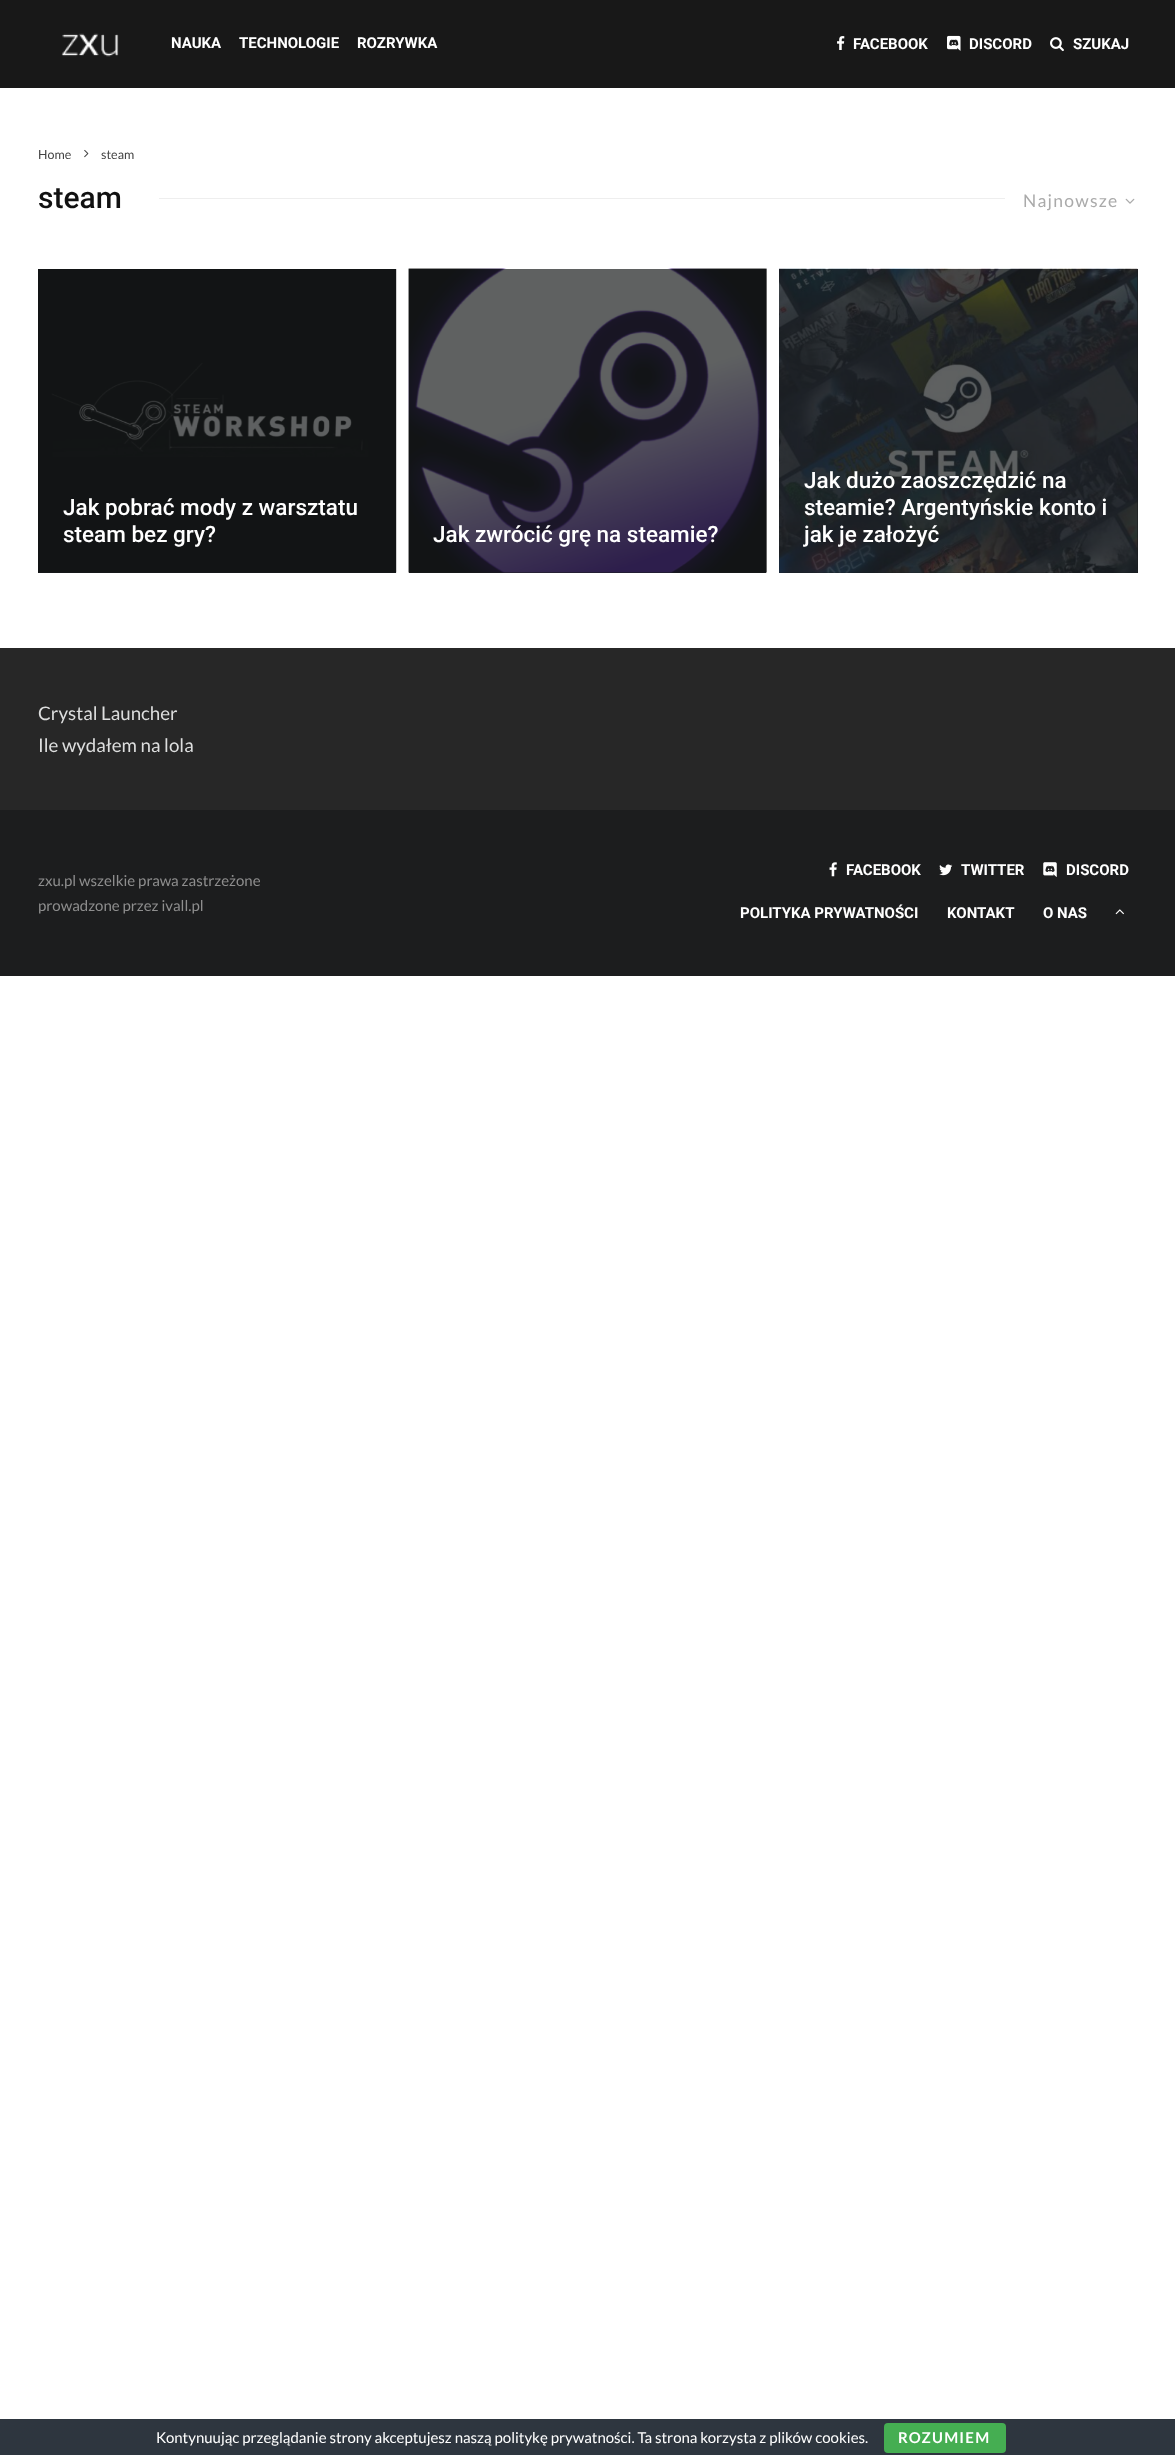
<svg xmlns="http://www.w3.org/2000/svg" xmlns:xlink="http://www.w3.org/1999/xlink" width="1175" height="2455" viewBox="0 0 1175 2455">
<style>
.cls-1{font:bold 15px Roboto;fill:#ffffff}
.cls-2{font:12.5px Lato;fill:#444444}
.cls-3{font:500 30px Roboto;fill:#111111}
.cls-4{font:17.5px Lato;letter-spacing:1.25px;fill:#aaaaaa}
.cls-5{font:500 22.5px Roboto;fill:#ffffff}
.cls-6{font:18.75px Lato;fill:#dddede}
.cls-7{font:15px Lato;fill:#8e8e8e}
.cls-8{font:15px Lato;fill:#ffffff}
.cls-9{font:bold 15px Lato;letter-spacing:1.25px;fill:#ffffff}
</style>
<rect width="100%" height="100%" fill="#ffffff"/>
<rect fill="#181818" x="0" y="0" width="1175" height="88"/>
<image xlink:href="image0.png" x="61" y="33" width="58" height="24"/>
<image xlink:href="image1.png" x="837" y="36" width="8" height="14"/>
<image xlink:href="image2.png" x="947" y="35" width="14" height="16"/>
<image xlink:href="image3.png" x="1050" y="37" width="14" height="15"/>
<image xlink:href="image4.png" x="84" y="149" width="5" height="9"/>
<rect fill="#eeeeee" x="159" y="198" width="846" height="1"/>
<image xlink:href="image5.png" x="1125" y="198" width="10" height="6"/>
<rect fill="#191b1c" x="38" y="572" width="358" height="1"/>
<image xlink:href="image6.png" x="38" y="269" width="359" height="304"/>
<rect fill="#191b1c" x="409" y="269" width="357" height="304"/>
<image xlink:href="image7.png" x="408" y="268" width="359" height="305"/>
<rect fill="#191b1c" x="779" y="269" width="359" height="304"/>
<image xlink:href="image8.png" x="779" y="268" width="359" height="305"/>
<rect fill="#272727" x="0" y="648" width="1175" height="162"/>
<rect fill="#1c1d1e" x="0" y="810" width="1175" height="166"/>
<image xlink:href="image9.png" x="829" y="862" width="8" height="15"/>
<image xlink:href="image10.png" x="939" y="864" width="14" height="12"/>
<image xlink:href="image11.png" x="1043" y="862" width="14" height="15"/>
<image xlink:href="image12.png" x="1115" y="909" width="9" height="6"/>
<rect fill="#2e363f" x="0" y="2419" width="1175" height="36"/>
<rect fill="#45ae52" x="884" y="2423" width="122" height="30" rx="4"/>
<text class="cls-1" x="171" y="48">NAUKA</text>
<text class="cls-1" x="239" y="48">TECHNOLOGIE</text>
<text class="cls-1" x="357" y="48">ROZRYWKA</text>
<text class="cls-1" x="853" y="49">FACEBOOK</text>
<text class="cls-1" x="969" y="49">DISCORD</text>
<text class="cls-1" x="1073" y="49">SZUKAJ</text>
<text class="cls-2" x="38" y="159">Home</text>
<text class="cls-2" x="101" y="159">steam</text>
<text class="cls-3" x="38" y="208">steam</text>
<text class="cls-4" x="1023" y="207">Najnowsze</text>
<text class="cls-5"><tspan x="63" y="515">Jak pobrać mody z warsztatu</tspan><tspan x="63" y="542">steam bez gry?</tspan></text>
<text class="cls-5" x="433" y="542">Jak zwrócić grę na steamie?</text>
<text class="cls-5"><tspan x="804" y="488">Jak dużo zaoszczędzić na</tspan><tspan x="804" y="515">steamie? Argentyńskie konto i</tspan><tspan x="804" y="542">jak je założyć</tspan></text>
<text class="cls-6"><tspan x="38" y="720">Crystal Launcher</tspan><tspan x="38" y="752">Ile wydałem na lola</tspan></text>
<text class="cls-7"><tspan x="38" y="886">zxu.pl wszelkie prawa zastrzeżone</tspan><tspan x="38" y="911">prowadzone przez ivall.pl</tspan></text>
<text class="cls-1" x="846" y="875">FACEBOOK</text>
<text class="cls-1" x="961" y="875">TWITTER</text>
<text class="cls-1" x="1066" y="875">DISCORD</text>
<text class="cls-1" x="740" y="918">POLITYKA PRYWATNOŚCI</text>
<text class="cls-1" x="947" y="918">KONTAKT</text>
<text class="cls-1" x="1043" y="918">O NAS</text>
<text class="cls-8" x="156" y="2443">Kontynuując przeglądanie strony akceptujesz naszą politykę prywatności. Ta strona korzysta z plików cookies.</text>
<text class="cls-9" x="898" y="2443">ROZUMIEM</text>
</svg>
